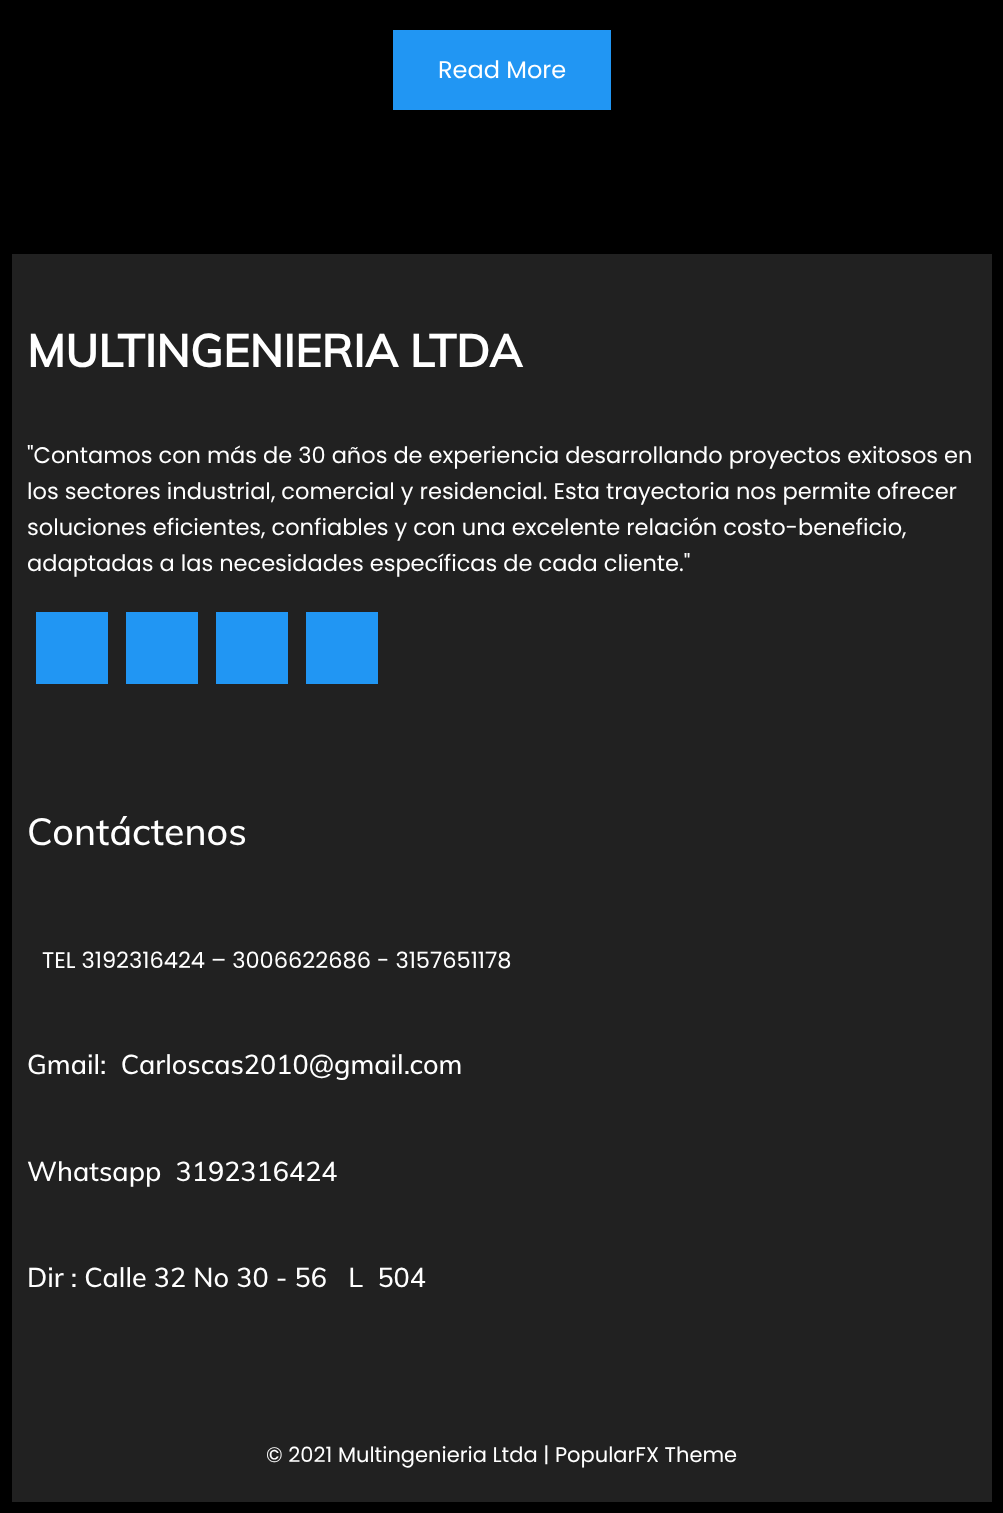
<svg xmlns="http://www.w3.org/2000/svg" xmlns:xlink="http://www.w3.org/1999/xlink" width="1003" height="1513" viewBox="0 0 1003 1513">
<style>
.cls-1{font:24px Poppins;fill:#ffffff}
.cls-2{font:bold 45px Muli;fill:#ffffff}
.cls-3{font:22.5px Poppins;fill:#ffffff}
.cls-4{font:500 37.5px Muli;fill:#ffffff}
.cls-5{font:500 27px Muli;fill:#ffffff}
.cls-6{font:21px Poppins;fill:#ffffff}
</style>
<rect width="100%" height="100%" fill="#000000"/>
<rect fill="#2196f3" x="393" y="30" width="218" height="80"/>
<rect fill="#212121" x="12" y="254" width="980" height="1248"/>
<rect fill="#2196f3" x="36" y="612" width="72" height="72"/>
<rect fill="#2196f3" x="126" y="612" width="72" height="72"/>
<rect fill="#2196f3" x="216" y="612" width="72" height="72"/>
<rect fill="#2196f3" x="306" y="612" width="72" height="72"/>
<text class="cls-1" x="438" y="78">Read More</text>
<text class="cls-2" x="27" y="367">MULTINGENIERIA LTDA</text>
<text class="cls-3"><tspan x="27" y="463">"Contamos con más de 30 años de experiencia desarrollando proyectos exitosos en</tspan><tspan x="27" y="499">los sectores industrial, comercial y residencial. Esta trayectoria nos permite ofrecer</tspan><tspan x="27" y="535">soluciones eficientes, confiables y con una excelente relación costo-beneficio,</tspan><tspan x="27" y="571">adaptadas a las necesidades específicas de cada cliente."</tspan></text>
<text class="cls-4" x="27" y="845">Contáctenos</text>
<text class="cls-3" x="42" y="968">TEL 3192316424 – 3006622686 - 3157651178</text>
<text class="cls-5" xml:space="preserve" x="27" y="1074">Gmail:  Carloscas2010@gmail.com</text>
<text class="cls-5" xml:space="preserve" x="27" y="1181">Whatsapp  3192316424</text>
<text class="cls-5" xml:space="preserve" x="27" y="1287">Dir : Calle 32 No 30 - 56   L  504</text>
<text class="cls-6" x="266" y="1462">© 2021 Multingenieria Ltda | PopularFX Theme</text>
</svg>
